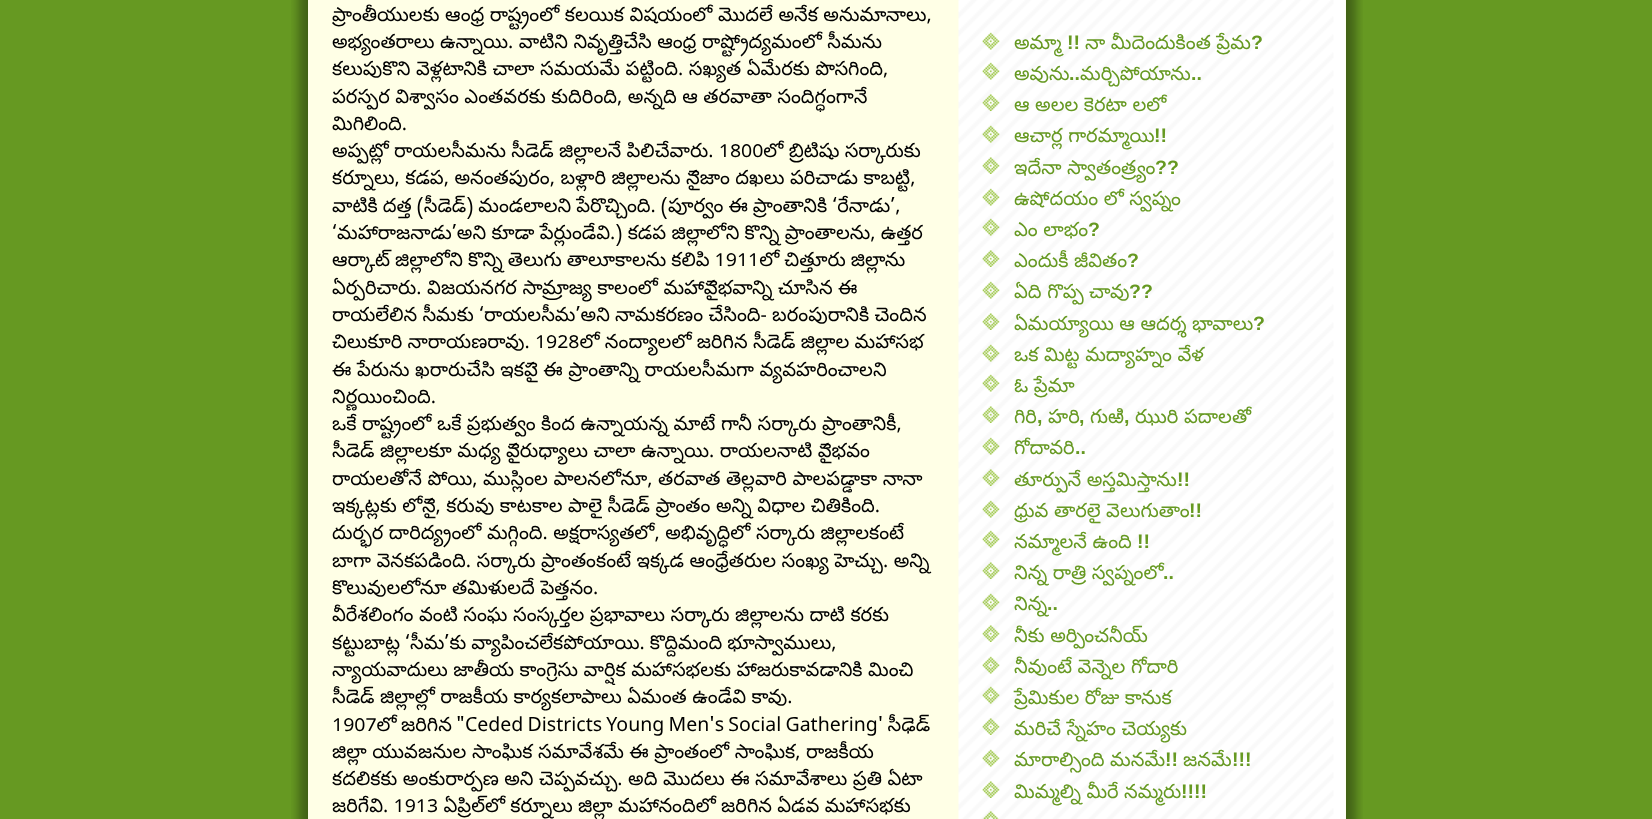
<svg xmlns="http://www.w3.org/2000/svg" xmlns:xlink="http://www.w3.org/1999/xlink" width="1652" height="819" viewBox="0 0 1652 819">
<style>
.cls-1{font:19.5px Noto Sans Telugu;fill:#000000}
.cls-2{font:19.5px Noto Sans Telugu;fill:#669922}
.cls-3{font:bold 19.5px Liberation Sans;fill:#669922}
</style>
<defs>
<clipPath id="clip1"><rect x="332" y="0" width="600" height="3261"/></clipPath>
</defs>
<rect width="100%" height="100%" fill="#669922"/>
<image xlink:href="image0.png" x="291" y="0" width="1072" height="819"/>
<rect fill="#ffffe6" x="308" y="0" width="1038" height="819"/>
<image xlink:href="image1.png" x="958" y="0" width="388" height="819"/>
<image xlink:href="image2.png" x="982" y="32" width="18" height="18"/>
<image xlink:href="image3.png" x="982" y="62" width="18" height="18"/>
<image xlink:href="image4.png" x="982" y="94" width="18" height="17"/>
<image xlink:href="image5.png" x="982" y="125" width="18" height="18"/>
<image xlink:href="image6.png" x="982" y="157" width="18" height="17"/>
<image xlink:href="image3.png" x="982" y="188" width="18" height="18"/>
<image xlink:href="image7.png" x="982" y="218" width="18" height="18"/>
<image xlink:href="image8.png" x="982" y="250" width="18" height="17"/>
<image xlink:href="image9.png" x="982" y="281" width="18" height="18"/>
<image xlink:href="image10.png" x="982" y="313" width="18" height="17"/>
<image xlink:href="image11.png" x="982" y="344" width="18" height="18"/>
<image xlink:href="image12.png" x="982" y="374" width="18" height="18"/>
<image xlink:href="image13.png" x="982" y="406" width="18" height="17"/>
<image xlink:href="image14.png" x="982" y="437" width="18" height="18"/>
<image xlink:href="image15.png" x="982" y="469" width="18" height="17"/>
<image xlink:href="image2.png" x="982" y="500" width="18" height="18"/>
<image xlink:href="image3.png" x="982" y="530" width="18" height="18"/>
<image xlink:href="image4.png" x="982" y="562" width="18" height="17"/>
<image xlink:href="image5.png" x="982" y="593" width="18" height="18"/>
<image xlink:href="image6.png" x="982" y="625" width="18" height="17"/>
<image xlink:href="image3.png" x="982" y="656" width="18" height="18"/>
<image xlink:href="image7.png" x="982" y="686" width="18" height="18"/>
<image xlink:href="image16.png" x="982" y="718" width="18" height="17"/>
<image xlink:href="image17.png" x="982" y="749" width="18" height="18"/>
<image xlink:href="image18.png" x="982" y="781" width="18" height="17"/>
<image xlink:href="image19.png" x="982" y="811" width="17" height="8"/>
<g clip-path="url(#clip1)">
<text class="cls-1" x="332" y="21">ప్రాంతీయులకు ఆంధ్ర రాష్ట్రంలో కలయిక విషయంలో మొదలే అనేక అనుమానాలు,</text>
</g>
<text class="cls-1"><tspan x="332" y="48">అభ్యంతరాలు ఉన్నాయి. వాటిని నివృత్తిచేసి ఆంధ్ర రాష్ట్రోద్యమంలో సీమను</tspan><tspan x="332" y="75">కలుపుకొని వెళ్లటానికి చాలా సమయమే పట్టింది. సఖ్యత ఏమేరకు పొసగింది,</tspan><tspan x="332" y="103">పరస్పర విశ్వాసం ఎంతవరకు కుదిరింది, అన్నది ఆ తరవాతా సందిగ్ధంగానే</tspan><tspan x="332" y="130">మిగిలింది.</tspan><tspan x="332" y="157" word-spacing="-0.25">అప్పట్లో రాయలసీమను సీడెడ్ జిల్లాలనే పిలిచేవారు. 1800లో బ్రిటిషు సర్కారుకు</tspan><tspan x="332" y="184">కర్నూలు, కడప, అనంతపురం, బళ్లారి జిల్లాలను నైజాం దఖలు పరిచాడు కాబట్టి,</tspan><tspan x="332" y="212" word-spacing="-0.5">వాటికి దత్త (సీడెడ్) మండలాలని పేరొచ్చింది. (పూర్వం ఈ ప్రాంతానికి ‘రేనాడు’,</tspan><tspan x="332" y="239" word-spacing="-0.25">‘మహారాజనాడు’అని కూడా పేర్లుండేవి.) కడప జిల్లాలోని కొన్ని ప్రాంతాలను, ఉత్తర</tspan><tspan x="332" y="266" word-spacing="-0.5">ఆర్కాట్ జిల్లాలోని కొన్ని తెలుగు తాలూకాలను కలిపి 1911లో చిత్తూరు జిల్లాను</tspan><tspan x="332" y="294">ఏర్పరిచారు. విజయనగర సామ్రాజ్య కాలంలో మహావైభవాన్ని చూసిన ఈ</tspan><tspan x="332" y="321" word-spacing="-0.25">రాయలేలిన సీమకు ‘రాయలసీమ’అని నామకరణం చేసింది- బరంపురానికి చెందిన</tspan><tspan x="332" y="348" word-spacing="-0.25">చిలుకూరి నారాయణరావు. 1928లో నంద్యాలలో జరిగిన సీడెడ్ జిల్లాల మహాసభ</tspan><tspan x="332" y="376">ఈ పేరును ఖరారుచేసి ఇకపై ఈ ప్రాంతాన్ని రాయలసీమగా వ్యవహరించాలని</tspan><tspan x="332" y="403">నిర్ణయించింది.</tspan><tspan x="332" y="430">ఒకే రాష్ట్రంలో ఒకే ప్రభుత్వం కింద ఉన్నాయన్న మాటే గానీ సర్కారు ప్రాంతానికీ,</tspan><tspan x="332" y="457">సీడెడ్ జిల్లాలకూ మధ్య వైరుధ్యాలు చాలా ఉన్నాయి. రాయలనాటి వైభవం</tspan><tspan x="332" y="485">రాయలతోనే పోయి, ముస్లింల పాలనలోనూ, తరవాత తెల్లవారి పాలపడ్డాకా నానా</tspan><tspan x="332" y="512">ఇక్కట్లకు లోనై, కరువు కాటకాల పాలై సీడెడ్ ప్రాంతం అన్ని విధాల చితికింది.</tspan></text>
<g clip-path="url(#clip1)">
<text class="cls-1" x="332" y="539">దుర్భర దారిద్య్రంలో మగ్గింది. అక్షరాస్యతలో, అభివృద్ధిలో సర్కారు జిల్లాలకంటే</text>
</g>
<text class="cls-1"><tspan x="332" y="567">బాగా వెనకపడింది. సర్కారు ప్రాంతంకంటే ఇక్కడ ఆంధ్రేతరుల సంఖ్య హెచ్చు. అన్ని</tspan><tspan x="332" y="594">కొలువులలోనూ తమిళులదే పెత్తనం.</tspan><tspan x="332" y="621">వీరేశలింగం వంటి సంఘ సంస్కర్తల ప్రభావాలు సర్కారు జిల్లాలను దాటి కరకు</tspan></text>
<g clip-path="url(#clip1)">
<text class="cls-1"><tspan x="332" y="649" word-spacing="-0.5">కట్టుబాట్ల ‘సీమ’కు వ్యాపించలేకపోయాయి. కొద్దిమంది భూస్వాములు,</tspan><tspan x="332" y="676">న్యాయవాదులు జాతీయ కాంగ్రెసు వార్షిక మహాసభలకు హాజరుకావడానికి మించి</tspan></text>
</g>
<text class="cls-1"><tspan x="332" y="703">సీడెడ్ జిల్లాల్లో రాజకీయ కార్యకలాపాలు ఏమంత ఉండేవి కావు.</tspan><tspan x="332" y="731" word-spacing="-1.25">1907లో జరిగిన "Ceded Districts Young Men's Social Gathering' సీఢెడ్</tspan></text>
<g clip-path="url(#clip1)">
<text class="cls-1" x="332" y="758">జిల్లా యువజనుల సాంఘిక సమావేశమే ఈ ప్రాంతంలో సాంఘిక, రాజకీయ</text>
</g>
<text class="cls-1"><tspan x="332" y="785">కదలికకు అంకురార్పణ అని చెప్పవచ్చు. అది మొదలు ఈ సమావేశాలు ప్రతి ఏటా</tspan><tspan x="332" y="812" word-spacing="-0.25">జరిగేవి. 1913 ఏప్రిల్‌లో కర్నూలు జిల్లా మహానందిలో జరిగిన ఏడవ మహాసభకు</tspan></text>
<text class="cls-2" x="1014" y="49">అమ్మా</text>
<text class="cls-3" x="1067" y="49">!!</text>
<text class="cls-2" x="1085" y="49">నా మీదెందుకింత ప్రేమ</text>
<text class="cls-3" x="1251" y="49">?</text>
<text class="cls-2" x="1014" y="80">అవును</text>
<text class="cls-3" x="1069" y="80">..</text>
<text class="cls-2" x="1080" y="80">మర్చిపోయాను</text>
<text class="cls-3" x="1191" y="80">..</text>
<text class="cls-2"><tspan x="1014" y="111">ఆ అలల కెరటా లలో</tspan><tspan x="1014" y="142">ఆచార్ల గారమ్మాయి</tspan></text>
<text class="cls-3" x="1154" y="142">!!</text>
<text class="cls-2" x="1014" y="174">ఇదేనా స్వాతంత్ర్యం</text>
<text class="cls-3" x="1155" y="174">??</text>
<text class="cls-2"><tspan x="1014" y="205">ఉషోదయం లో స్వప్నం</tspan><tspan x="1014" y="236">ఎం లాభం</tspan></text>
<text class="cls-3" x="1088" y="236">?</text>
<text class="cls-2" x="1014" y="267">ఎందుకీ జీవితం</text>
<text class="cls-3" x="1127" y="267">?</text>
<text class="cls-2" x="1014" y="298">ఏది గొప్ప చావు</text>
<text class="cls-3" x="1129" y="298">??</text>
<text class="cls-2" x="1014" y="330">ఏమయ్యాయి ఆ ఆదర్శ భావాలు</text>
<text class="cls-3" x="1253" y="330">?</text>
<text class="cls-2"><tspan x="1014" y="361">ఒక మిట్ట మద్యాహ్నం వేళ</tspan><tspan x="1014" y="392">ఓ ప్రేమా</tspan><tspan x="1014" y="423">గిరి</tspan></text>
<text class="cls-3" x="1037" y="423">,</text>
<text class="cls-2" x="1048" y="423">హరి</text>
<text class="cls-3" x="1079" y="423">,</text>
<text class="cls-2" x="1090" y="423">గుఱి</text>
<text class="cls-3" x="1124" y="423">,</text>
<text class="cls-2" x="1135" y="423">ఝురి పదాలతో</text>
<text class="cls-2" x="1014" y="454">గోదావరి</text>
<text class="cls-3" x="1075" y="454">..</text>
<text class="cls-2" x="1014" y="486">తూర్పునే అస్తమిస్తాను</text>
<text class="cls-3" x="1177" y="486">!!</text>
<text class="cls-2" x="1014" y="517">ధ్రువ తారలై వెలుగుతాం</text>
<text class="cls-3" x="1189" y="517">!!</text>
<text class="cls-2" x="1014" y="548">నమ్మాలనే ఉంది</text>
<text class="cls-3" x="1137" y="548">!!</text>
<text class="cls-2" x="1014" y="579">నిన్న రాత్రి స్వప్నంలో</text>
<text class="cls-3" x="1163" y="579">..</text>
<text class="cls-2" x="1014" y="610">నిన్న</text>
<text class="cls-3" x="1047" y="610">..</text>
<text class="cls-2"><tspan x="1014" y="642">నీకు అర్పించనీయ్</tspan><tspan x="1014" y="673">నీవుంటే వెన్నెల గోదారి</tspan><tspan x="1014" y="704">ప్రేమికుల రోజు కానుక</tspan><tspan x="1014" y="735">మరిచే స్నేహం చెయ్యకు</tspan><tspan x="1014" y="766">మారాల్సింది మనమే</tspan></text>
<text class="cls-3" x="1165" y="766">!!</text>
<text class="cls-2" x="1183" y="766">జనమే</text>
<text class="cls-3" x="1232" y="766">!!!</text>
<text class="cls-2" x="1014" y="798">మిమ్మల్ని మీరే నమ్మరు</text>
<text class="cls-3" x="1181" y="798">!!!!</text>
</svg>
